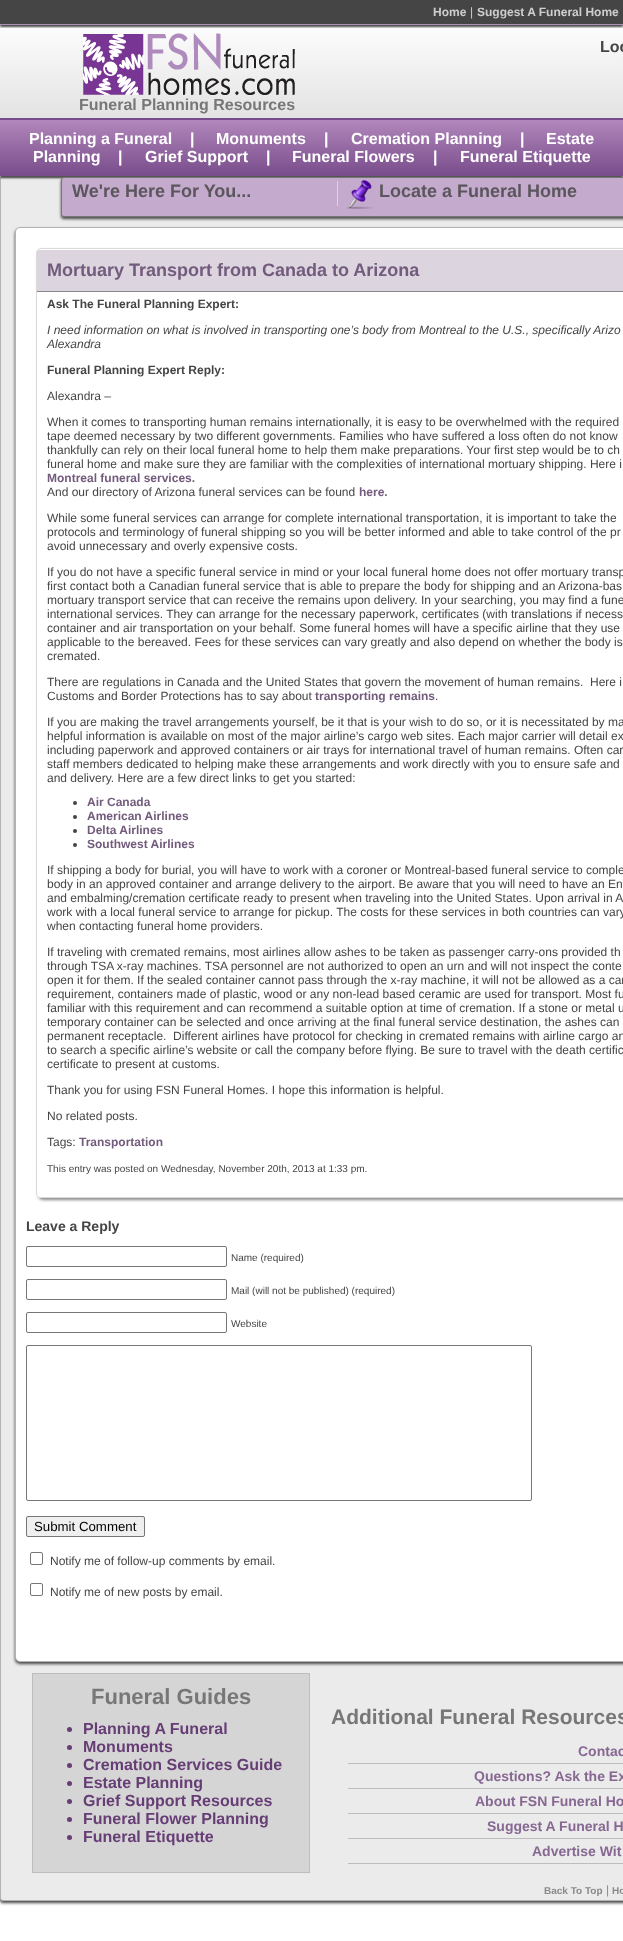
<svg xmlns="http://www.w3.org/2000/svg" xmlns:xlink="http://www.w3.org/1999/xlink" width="623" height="1941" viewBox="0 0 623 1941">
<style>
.cls-1{font:bold 12px Liberation Sans;fill:#cecece}
.cls-2{font:12px Liberation Sans;fill:#cecece}
.cls-3{font:bold 16px Liberation Sans;fill:#454545}
.cls-4{font:bold 16px Liberation Sans;fill:#777777}
.cls-5{font:bold 16px Liberation Sans;fill:#ffffff}
.cls-6{font:bold 18px Liberation Sans;fill:#5b565d}
.cls-7{font:bold 18px Liberation Sans;fill:#725b7c}
.cls-8{font:bold 12px Liberation Sans;fill:#454545}
.cls-9{font:italic 12px Liberation Sans;fill:#454545}
.cls-10{font:12px Liberation Sans;fill:#454545}
.cls-11{font:bold 12px Liberation Sans;fill:#725b7c}
.cls-12{font:10px Liberation Sans;fill:#454545}
.cls-13{font:bold 14px Liberation Sans;fill:#454545}
.cls-14{font:13.25px Liberation Sans;fill:#000000}
.cls-15{font:bold 22px Liberation Sans;fill:#777777}
.cls-16{font:bold 16px Liberation Sans;fill:#663d75}
.cls-17{font:bold 21px Liberation Sans;fill:#777777}
.cls-18{font:bold 14px Liberation Sans;fill:#876892}
.cls-19{font:bold 10px Liberation Sans;fill:#8a8a8a}
.cls-20{font:12px Liberation Sans;fill:#8a8a8a}
</style>
<defs>
<linearGradient id="g1" gradientUnits="userSpaceOnUse" x1="312" y1="28" x2="312" y2="118"><stop offset="0" stop-color="#fcfcfc"/><stop offset="1" stop-color="#e3e3e3"/></linearGradient>
<linearGradient id="g2" gradientUnits="userSpaceOnUse" x1="312" y1="120" x2="312" y2="176"><stop offset="0" stop-color="#b187bc"/><stop offset="1" stop-color="#784c8a"/></linearGradient>
<clipPath id="clip1"><path d="M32 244H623V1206H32ZM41 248H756C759 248 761 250 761 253V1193C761 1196 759 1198 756 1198H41C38 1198 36 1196 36 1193V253C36 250 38 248 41 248Z" clip-rule="evenodd"/></clipPath>
</defs>
<rect width="100%" height="100%" fill="#ffffff"/>
<rect fill="#454545" filter="blur(1px)" x="0" y="2" width="623" height="25"/>
<rect fill="#454545" x="0" y="0" width="623" height="24"/>
<rect fill="#ab92b4" x="0" y="24" width="623" height="1"/>
<rect fill="url(#g1)" x="0" y="28" width="623" height="90"/>
<image xlink:href="image0.png" x="83" y="33" width="212" height="63"/>
<rect fill="#454545" filter="blur(1.5px)" x="0" y="179" width="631" height="1724" rx="3"/>
<path fill="#ebebeb" stroke="#b3b3b3" d="M.5 177.5H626.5V1898C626.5 1899.5 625.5 1900.5 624 1900.5H3C1.5 1900.5 .5 1899.5 .5 1898Z"/>
<rect fill="#454545" filter="blur(1px)" x="0" y="120" width="623" height="58"/>
<rect fill="url(#g2)" x="0" y="120" width="623" height="56"/>
<rect fill="#784c8a" x="0" y="118" width="623" height="2"/>
<rect fill="#454545" filter="blur(1.5px)" x="61" y="179" width="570" height="40" rx="3"/>
<rect fill="#c4aacc" stroke="#767676" x="61.5" y="177.5" width="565" height="39" rx="2.5"/>
<rect fill="#dcd4df" x="337" y="181" width="1" height="25"/>
<image xlink:href="image1.png" x="346" y="180" width="28" height="29"/>
<rect fill="#454545" filter="blur(1.5px)" x="15" y="229" width="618" height="1435" rx="5"/>
<rect fill="#ffffff" stroke="#b3b3b3" x="15.5" y="227.5" width="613" height="1434" rx="4.5"/>
<g clip-path="url(#clip1)">
<rect fill="#888888" filter="blur(1.5px)" x="38" y="250" width="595" height="950" rx="5"/>
</g>
<rect fill="none" stroke="#dadada" x="36.5" y="248.5" width="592" height="949" rx="4.5"/>
<rect fill="#dcd4df" x="37" y="250" width="586" height="41"/>
<rect fill="#888888" x="37" y="291" width="586" height="1"/>
<circle fill="#454545" cx="75" cy="803" r="2"/>
<circle fill="#454545" cx="75" cy="817" r="2"/>
<circle fill="#454545" cx="75" cy="831" r="2"/>
<circle fill="#454545" cx="75" cy="845" r="2"/>
<rect fill="none" stroke="#767676" x="26.5" y="1246.5" width="200" height="20" rx="1.5"/>
<rect fill="none" stroke="#767676" x="26.5" y="1279.5" width="200" height="20" rx="1.5"/>
<rect fill="none" stroke="#767676" x="26.5" y="1312.5" width="200" height="20" rx="1.5"/>
<rect fill="none" stroke="#767676" x="26.5" y="1345.5" width="505" height="155" rx="1.5"/>
<rect fill="#efefef" stroke="#767676" x="26.5" y="1516.5" width="118" height="20" rx="1.5"/>
<rect fill="none" stroke="#767676" x="30.5" y="1552.5" width="12" height="12" rx="1.5"/>
<rect fill="none" stroke="#767676" x="30.5" y="1583.5" width="12" height="12" rx="1.5"/>
<rect fill="#d5d5d5" stroke="#bdbdbd" x="32.5" y="1673.5" width="277" height="199"/>
<circle fill="#663d75" cx="69.5" cy="1729.5" r="2.5"/>
<circle fill="#663d75" cx="69.5" cy="1747.5" r="2.5"/>
<circle fill="#663d75" cx="69.5" cy="1765.5" r="2.5"/>
<circle fill="#663d75" cx="69.5" cy="1783.5" r="2.5"/>
<circle fill="#663d75" cx="69.5" cy="1801.5" r="2.5"/>
<circle fill="#663d75" cx="69.5" cy="1819.5" r="2.5"/>
<circle fill="#663d75" cx="69.5" cy="1837.5" r="2.5"/>
<rect fill="#bdbdbd" x="348" y="1763" width="275" height="1"/>
<rect fill="#bdbdbd" x="348" y="1788" width="275" height="1"/>
<rect fill="#bdbdbd" x="348" y="1813" width="275" height="1"/>
<rect fill="#bdbdbd" x="348" y="1838" width="275" height="1"/>
<rect fill="#bdbdbd" x="348" y="1863" width="275" height="1"/>
<text class="cls-1" x="433" y="16">Home</text>
<text class="cls-2" x="470" y="16">|</text>
<text class="cls-1" x="477" y="16">Suggest A Funeral Home</text>
<text class="cls-3" x="600" y="52">Loc</text>
<text class="cls-4" x="79" y="110">Funeral Planning Resources</text>
<text class="cls-5" x="29" y="144">Planning a Funeral</text>
<text class="cls-5" x="190" y="144">|</text>
<text class="cls-5" x="216" y="144">Monuments</text>
<text class="cls-5" x="324" y="144">|</text>
<text class="cls-5" x="351" y="144">Cremation Planning</text>
<text class="cls-5" x="520" y="144">|</text>
<text class="cls-5" x="546" y="144">Estate</text>
<text class="cls-5" x="33" y="162">Planning</text>
<text class="cls-5" x="118" y="162">|</text>
<text class="cls-5" x="145" y="162">Grief Support</text>
<text class="cls-5" x="266" y="162">|</text>
<text class="cls-5" x="292" y="162">Funeral Flowers</text>
<text class="cls-5" x="433" y="162">|</text>
<text class="cls-5" x="460" y="162">Funeral Etiquette</text>
<text class="cls-6" x="72" y="197">We're Here For You...</text>
<text class="cls-6" x="379" y="197">Locate a Funeral Home</text>
<text class="cls-7" x="47" y="276">Mortuary Transport from Canada to Arizona</text>
<text class="cls-8" x="47" y="308">Ask The Funeral Planning Expert:</text>
<text class="cls-9"><tspan x="47" y="334">I need information on what is involved in transporting one’s body from Montreal to the U.S., specifically Arizo</tspan><tspan x="47" y="348">Alexandra</tspan></text>
<text class="cls-8" x="47" y="374">Funeral Planning Expert Reply:</text>
<text class="cls-10" x="47" y="400">Alexandra –</text>
<text class="cls-10"><tspan x="47" y="426">When it comes to transporting human remains internationally, it is easy to be overwhelmed with the required</tspan><tspan x="47" y="440">tape deemed necessary by two different governments. Families who have suffered a loss often do not know</tspan><tspan x="47" y="454">thankfully can rely on their local funeral home to help them make preparations. Your first step would be to ch</tspan><tspan x="47" y="468">funeral home and make sure they are familiar with the complexities of international mortuary shipping. Here i</tspan></text>
<text class="cls-11" x="47" y="482">Montreal funeral services.</text>
<text class="cls-10" x="47" y="496">And our directory of Arizona funeral services can be found</text>
<text class="cls-11" x="359" y="496">here.</text>
<text class="cls-10"><tspan x="47" y="522">While some funeral services can arrange for complete international transportation, it is important to take the</tspan><tspan x="47" y="536">protocols and terminology of funeral shipping so you will be better informed and able to take control of the pr</tspan><tspan x="47" y="550">avoid unnecessary and overly expensive costs.</tspan></text>
<text class="cls-10"><tspan x="47" y="576">If you do not have a specific funeral service in mind or your local funeral home does not offer mortuary transp</tspan><tspan x="47" y="590">first contact both a Canadian funeral service that is able to prepare the body for shipping and an Arizona-bas</tspan><tspan x="47" y="604">mortuary transport service that can receive the remains upon delivery. In your searching, you may find a fune</tspan><tspan x="47" y="618">international services. They can arrange for the necessary paperwork, certificates (with translations if necess</tspan><tspan x="47" y="632">container and air transportation on your behalf. Some funeral homes will have a specific airline that they use</tspan><tspan x="47" y="646">applicable to the bereaved. Fees for these services can vary greatly and also depend on whether the body is</tspan><tspan x="47" y="660">cremated.</tspan></text>
<text class="cls-10" xml:space="preserve"><tspan x="47" y="686">There are regulations in Canada and the United States that govern the movement of human remains.  Here i</tspan><tspan x="47" y="700">Customs and Border Protections has to say about</tspan></text>
<text class="cls-11" x="315" y="700">transporting remains</text>
<text class="cls-10" x="435" y="700">.</text>
<text class="cls-10"><tspan x="47" y="726">If you are making the travel arrangements yourself, be it that is your wish to do so, or it is necessitated by ma</tspan><tspan x="47" y="740">helpful information is available on most of the major airline’s cargo web sites. Each major carrier will detail ex</tspan><tspan x="47" y="754">including paperwork and approved containers or air trays for international travel of human remains. Often car</tspan><tspan x="47" y="768">staff members dedicated to helping make these arrangements and work directly with you to ensure safe and</tspan><tspan x="47" y="782">and delivery. Here are a few direct links to get you started:</tspan></text>
<text class="cls-11"><tspan x="87" y="806">Air Canada</tspan><tspan x="87" y="820">American Airlines</tspan><tspan x="87" y="834">Delta Airlines</tspan><tspan x="87" y="848">Southwest Airlines</tspan></text>
<text class="cls-10"><tspan x="47" y="874">If shipping a body for burial, you will have to work with a coroner or Montreal-based funeral service to comple</tspan><tspan x="47" y="888">body in an approved container and arrange delivery to the airport. Be aware that you will need to have an En</tspan><tspan x="47" y="902">and embalming/cremation certificate ready to present when traveling into the United States. Upon arrival in A</tspan><tspan x="47" y="916">work with a local funeral service to arrange for pickup. The costs for these services in both countries can vary</tspan><tspan x="47" y="930">when contacting funeral home providers.</tspan></text>
<text class="cls-10" xml:space="preserve"><tspan x="47" y="956">If traveling with cremated remains, most airlines allow ashes to be taken as passenger carry-ons provided th</tspan><tspan x="47" y="970">through TSA x-ray machines. TSA personnel are not authorized to open an urn and will not inspect the conte</tspan><tspan x="47" y="984">open it for them. If the sealed container cannot pass through the x-ray machine, it will not be allowed as a car</tspan><tspan x="47" y="998">requirement, containers made of plastic, wood or any non-lead based ceramic are used for transport. Most fu</tspan><tspan x="47" y="1012">familiar with this requirement and can recommend a suitable option at time of cremation. If a stone or metal u</tspan><tspan x="47" y="1026">temporary container can be selected and once arriving at the final funeral service destination, the ashes can</tspan><tspan x="47" y="1040">permanent receptacle.  Different airlines have protocol for checking in cremated remains with airline cargo an</tspan><tspan x="47" y="1054">to search a specific airline’s website or call the company before flying. Be sure to travel with the death certific</tspan><tspan x="47" y="1068">certificate to present at customs.</tspan></text>
<text class="cls-10" x="47" y="1094">Thank you for using FSN Funeral Homes. I hope this information is helpful.</text>
<text class="cls-10" x="47" y="1120">No related posts.</text>
<text class="cls-10" x="47" y="1146">Tags:</text>
<text class="cls-11" x="79" y="1146">Transportation</text>
<text class="cls-12" x="47" y="1172">This entry was posted on Wednesday, November 20th, 2013 at 1:33 pm.</text>
<text class="cls-13" x="26" y="1231">Leave a Reply</text>
<text class="cls-12" x="231" y="1261">Name (required)</text>
<text class="cls-12" x="231" y="1294">Mail (will not be published) (required)</text>
<text class="cls-12" x="231" y="1327">Website</text>
<text class="cls-14" x="34" y="1531">Submit Comment</text>
<text class="cls-10" x="50" y="1565">Notify me of follow-up comments by email.</text>
<text class="cls-10" x="50" y="1596">Notify me of new posts by email.</text>
<text class="cls-15" x="91" y="1704">Funeral Guides</text>
<text class="cls-16"><tspan x="83" y="1734">Planning A Funeral</tspan><tspan x="83" y="1752">Monuments</tspan><tspan x="83" y="1770">Cremation Services Guide</tspan><tspan x="83" y="1788">Estate Planning</tspan><tspan x="83" y="1806">Grief Support Resources</tspan><tspan x="83" y="1824">Funeral Flower Planning</tspan><tspan x="83" y="1842">Funeral Etiquette</tspan></text>
<text class="cls-17" x="331" y="1724">Additional Funeral Resources</text>
<text class="cls-18" x="578" y="1756">Contac</text>
<text class="cls-18" x="474" y="1781">Questions? Ask the Ex</text>
<text class="cls-18" x="475" y="1806">About FSN Funeral Ho</text>
<text class="cls-18" x="487" y="1831">Suggest A Funeral H</text>
<text class="cls-18" x="532" y="1856">Advertise Wit</text>
<text class="cls-19" x="544" y="1894">Back To Top</text>
<text class="cls-20" x="606" y="1894">|</text>
<text class="cls-19" x="612" y="1894">Ho</text>
</svg>
